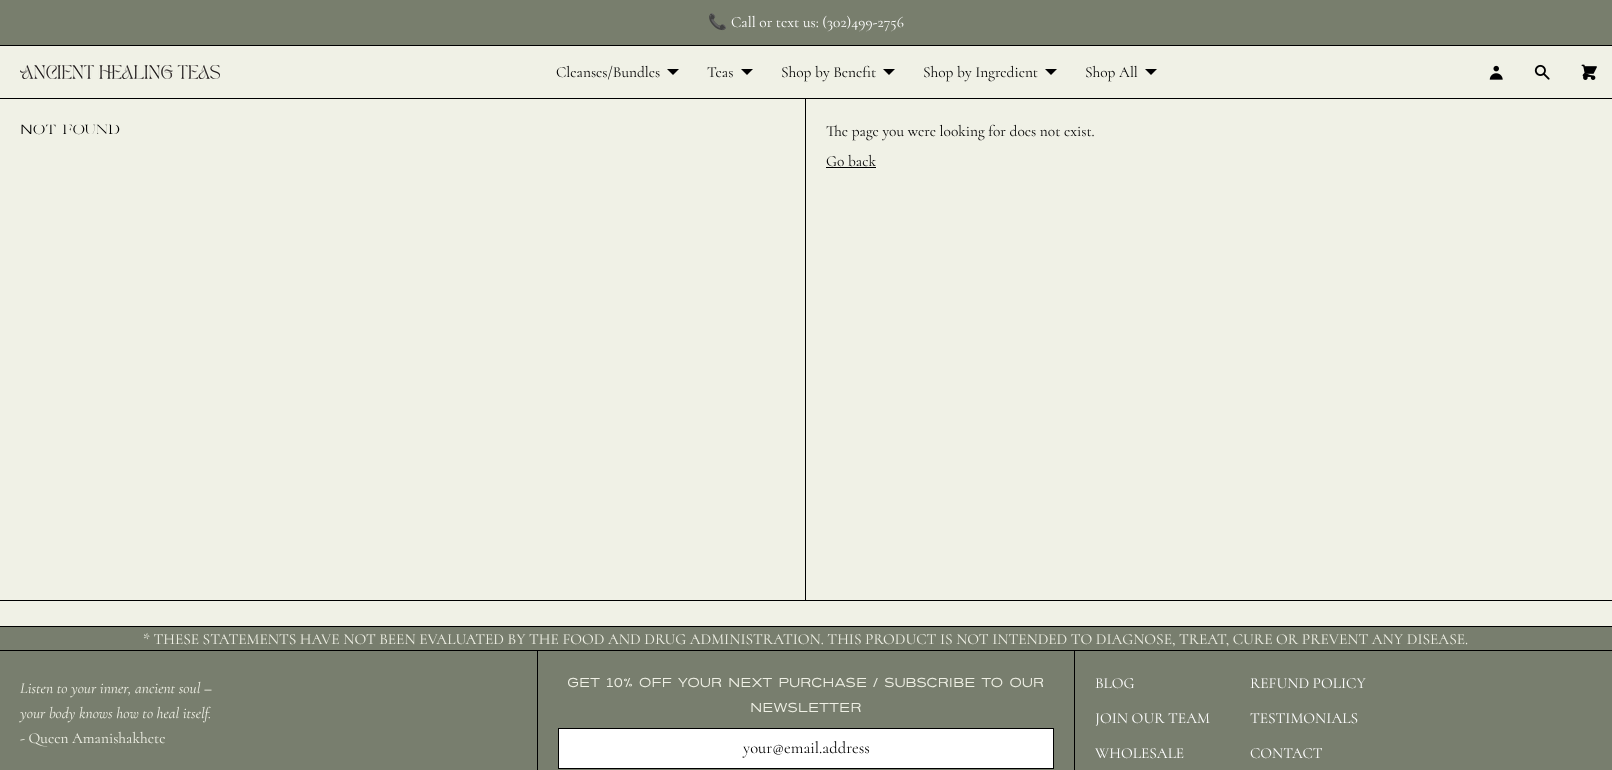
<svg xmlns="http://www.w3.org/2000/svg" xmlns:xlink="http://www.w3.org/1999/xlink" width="1612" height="770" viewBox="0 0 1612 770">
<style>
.cls-1{font:15.4px Noto Color Emoji;fill:#ffffff}
.cls-2{font:15.4px Cormorant;fill:#ffffff}
.cls-3{font:15.4px Cormorant;fill:#000000}
.cls-4{font:16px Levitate;fill:#000000}
.cls-5{font:15.4px Cormorant;fill:#f0f1e6}
.cls-6{font:italic 15.4px Cormorant;fill:#f0f1e6}
.cls-7{font:15.4px Levitate;fill:#f0f1e6}
.cls-8{font:16.5px Cormorant;fill:#000000}
</style>
<rect width="100%" height="100%" fill="#f0f1e6"/>
<rect fill="#787e6d" x="0" y="0" width="1612" height="45"/>
<rect fill="#000000" x="0" y="45" width="1612" height="1"/>
<rect fill="#000000" x="0" y="98" width="1612" height="1"/>
<image xlink:href="image0.png" x="20" y="65" width="200" height="14"/>
<path fill="#000001" d="M667 69H679L673 75Z"/>
<path fill="#000001" d="M741 69H753L747 75Z"/>
<path fill="#000001" d="M883 69H895L889 75Z"/>
<path fill="#000001" d="M1045 69H1057L1051 75Z"/>
<path fill="#000001" d="M1145 69H1157L1151 75Z"/>
<image xlink:href="image1.png" x="1489" y="65" width="14" height="15"/>
<image xlink:href="image2.png" x="1534" y="64" width="16" height="16"/>
<image xlink:href="image3.png" x="1581" y="64" width="16" height="16"/>
<rect fill="#000000" x="0" y="600" width="1612" height="1"/>
<rect fill="#000000" x="805" y="99" width="1" height="501"/>
<rect fill="#000001" x="826" y="167" width="50" height="1"/>
<rect fill="#787e6e" x="0" y="627" width="1612" height="143"/>
<rect fill="#000000" x="0" y="626" width="1612" height="1"/>
<rect fill="none" stroke="#000000" x="-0.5" y="650.5" width="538" height="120"/>
<rect fill="#ffffff" stroke="#000000" x="558.5" y="728.5" width="495" height="40"/>
<rect fill="none" stroke="#000000" x="537.5" y="650.5" width="537" height="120"/>
<rect fill="none" stroke="#000000" x="1074.5" y="650.5" width="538" height="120"/>
<text class="cls-1" x="708" y="27">📞</text>
<text class="cls-2" x="731" y="27">Call or text us: (302)499-2756</text>
<text class="cls-3" x="556" y="77">Cleanses/Bundles</text>
<text class="cls-3" x="707" y="77">Teas</text>
<text class="cls-3" x="781" y="77">Shop by Benefit</text>
<text class="cls-3" x="923" y="77">Shop by Ingredient</text>
<text class="cls-3" x="1085" y="77">Shop All</text>
<text class="cls-4" x="20" y="134">Not found</text>
<text class="cls-3"><tspan x="826" y="136">The page you were looking for does not exist.</tspan><tspan x="826" y="166">Go back</tspan></text>
<text class="cls-5" x="143" y="644">* THESE STATEMENTS HAVE NOT BEEN EVALUATED BY THE FOOD AND DRUG ADMINISTRATION. THIS PRODUCT IS NOT INTENDED TO DIAGNOSE, TREAT, CURE OR PREVENT ANY DISEASE.</text>
<text class="cls-6"><tspan x="20" y="693">Listen to your inner, ancient soul –</tspan><tspan x="20" y="718">your body knows how to heal itself.</tspan></text>
<text class="cls-5" x="20" y="743">- Queen Amanishakhete</text>
<text class="cls-7" x="567" y="687">GET 10% OFF YOUR NEXT PURCHASE / SUBSCRIBE TO OUR</text>
<text class="cls-7" x="750" y="712">NEWSLETTER</text>
<text class="cls-8" x="743" y="753">your@email.address</text>
<text class="cls-2" x="1095" y="688">BLOG</text>
<text class="cls-2" x="1095" y="723">JOIN OUR TEAM</text>
<text class="cls-2" x="1095" y="758">WHOLESALE</text>
<text class="cls-2" x="1250" y="688">REFUND POLICY</text>
<text class="cls-2" x="1250" y="723">TESTIMONIALS</text>
<text class="cls-2" x="1250" y="758">CONTACT</text>
</svg>
